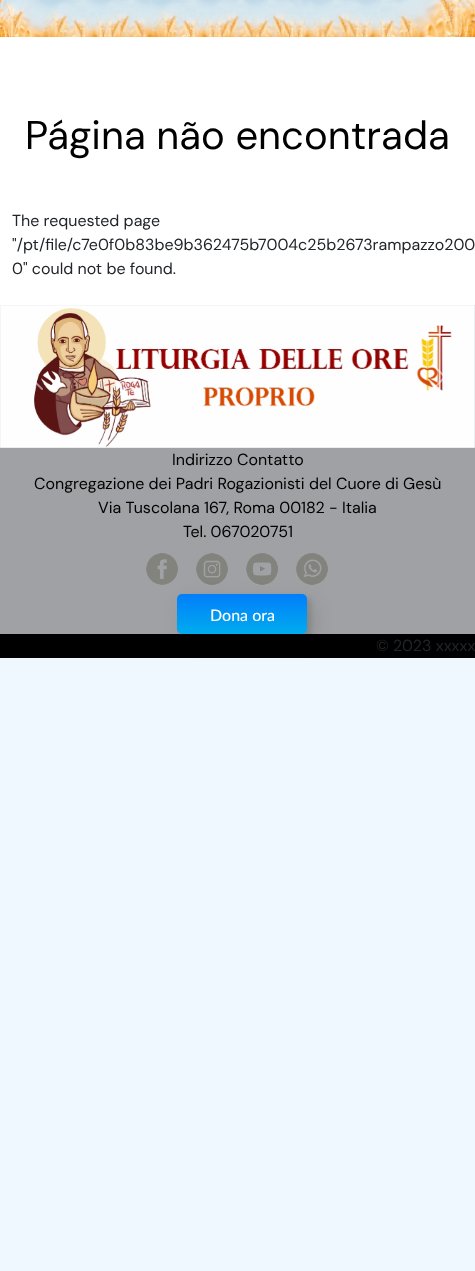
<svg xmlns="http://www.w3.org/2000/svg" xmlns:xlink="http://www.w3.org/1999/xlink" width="475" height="1271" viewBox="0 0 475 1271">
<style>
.cls-1{font:40px DM Sans;fill:#000000}
.cls-2{font:16px DM Sans;fill:#212529}
.cls-3{font:16px DM Sans;fill:#000000}
.cls-4{font:500 16px Lato;fill:#ffffff}
</style>
<defs>
<linearGradient id="g1" gradientUnits="userSpaceOnUse" x1="242" y1="634" x2="242" y2="594"><stop offset="0" stop-color="#00acee"/><stop offset="1" stop-color="#027efb"/></linearGradient>
</defs>
<rect width="100%" height="100%" fill="#f0f8ff"/>
<image xlink:href="image0.png" x="0" y="0" width="475" height="37"/>
<rect fill="#ffffff" x="0" y="37" width="475" height="268"/>
<rect fill="#a0a1a4" x="0" y="305" width="475" height="329"/>
<image xlink:href="image1.png" x="0" y="305" width="475" height="143"/>
<image xlink:href="image2.png" x="36" y="382" width="7" height="8"/>
<image xlink:href="image3.png" x="432" y="364" width="11" height="24"/>
<image xlink:href="image4.png" x="146" y="553" width="32" height="32"/>
<image xlink:href="image5.png" x="196" y="553" width="32" height="32"/>
<image xlink:href="image6.png" x="246" y="553" width="32" height="32"/>
<image xlink:href="image7.png" x="296" y="553" width="32" height="32"/>
<rect fill="#000000" x="0" y="634" width="475" height="24"/>
<rect fill="#000000" fill-opacity="0.1" filter="blur(2.5px)" x="181" y="598" width="130" height="40" rx="5"/>
<rect fill="#000000" fill-opacity="0.1" filter="blur(10px)" x="184" y="601" width="130" height="40" rx="5"/>
<rect fill="url(#g1)" x="177" y="594" width="130" height="40" rx="5"/>
<text class="cls-1" x="25" y="149">Página não encontrada</text>
<text class="cls-2"><tspan x="12" y="226">The requested page</tspan><tspan x="12" y="250">"/pt/file/c7e0f0b83be9b362475b7004c25b2673rampazzo200</tspan><tspan x="12" y="274">0" could not be found.</tspan></text>
<text class="cls-3" x="172" y="465">Indirizzo Contatto</text>
<text class="cls-3" x="34" y="489">Congregazione dei Padri Rogazionisti del Cuore di Gesù</text>
<text class="cls-3" x="98" y="513">Via Tuscolana 167, Roma 00182 - Italia</text>
<text class="cls-3" x="183" y="537">Tel. 067020751</text>
<text class="cls-4" x="210" y="621">Dona ora</text>
<text class="cls-2" x="376" y="651">© 2023 xxxxx</text>
</svg>
